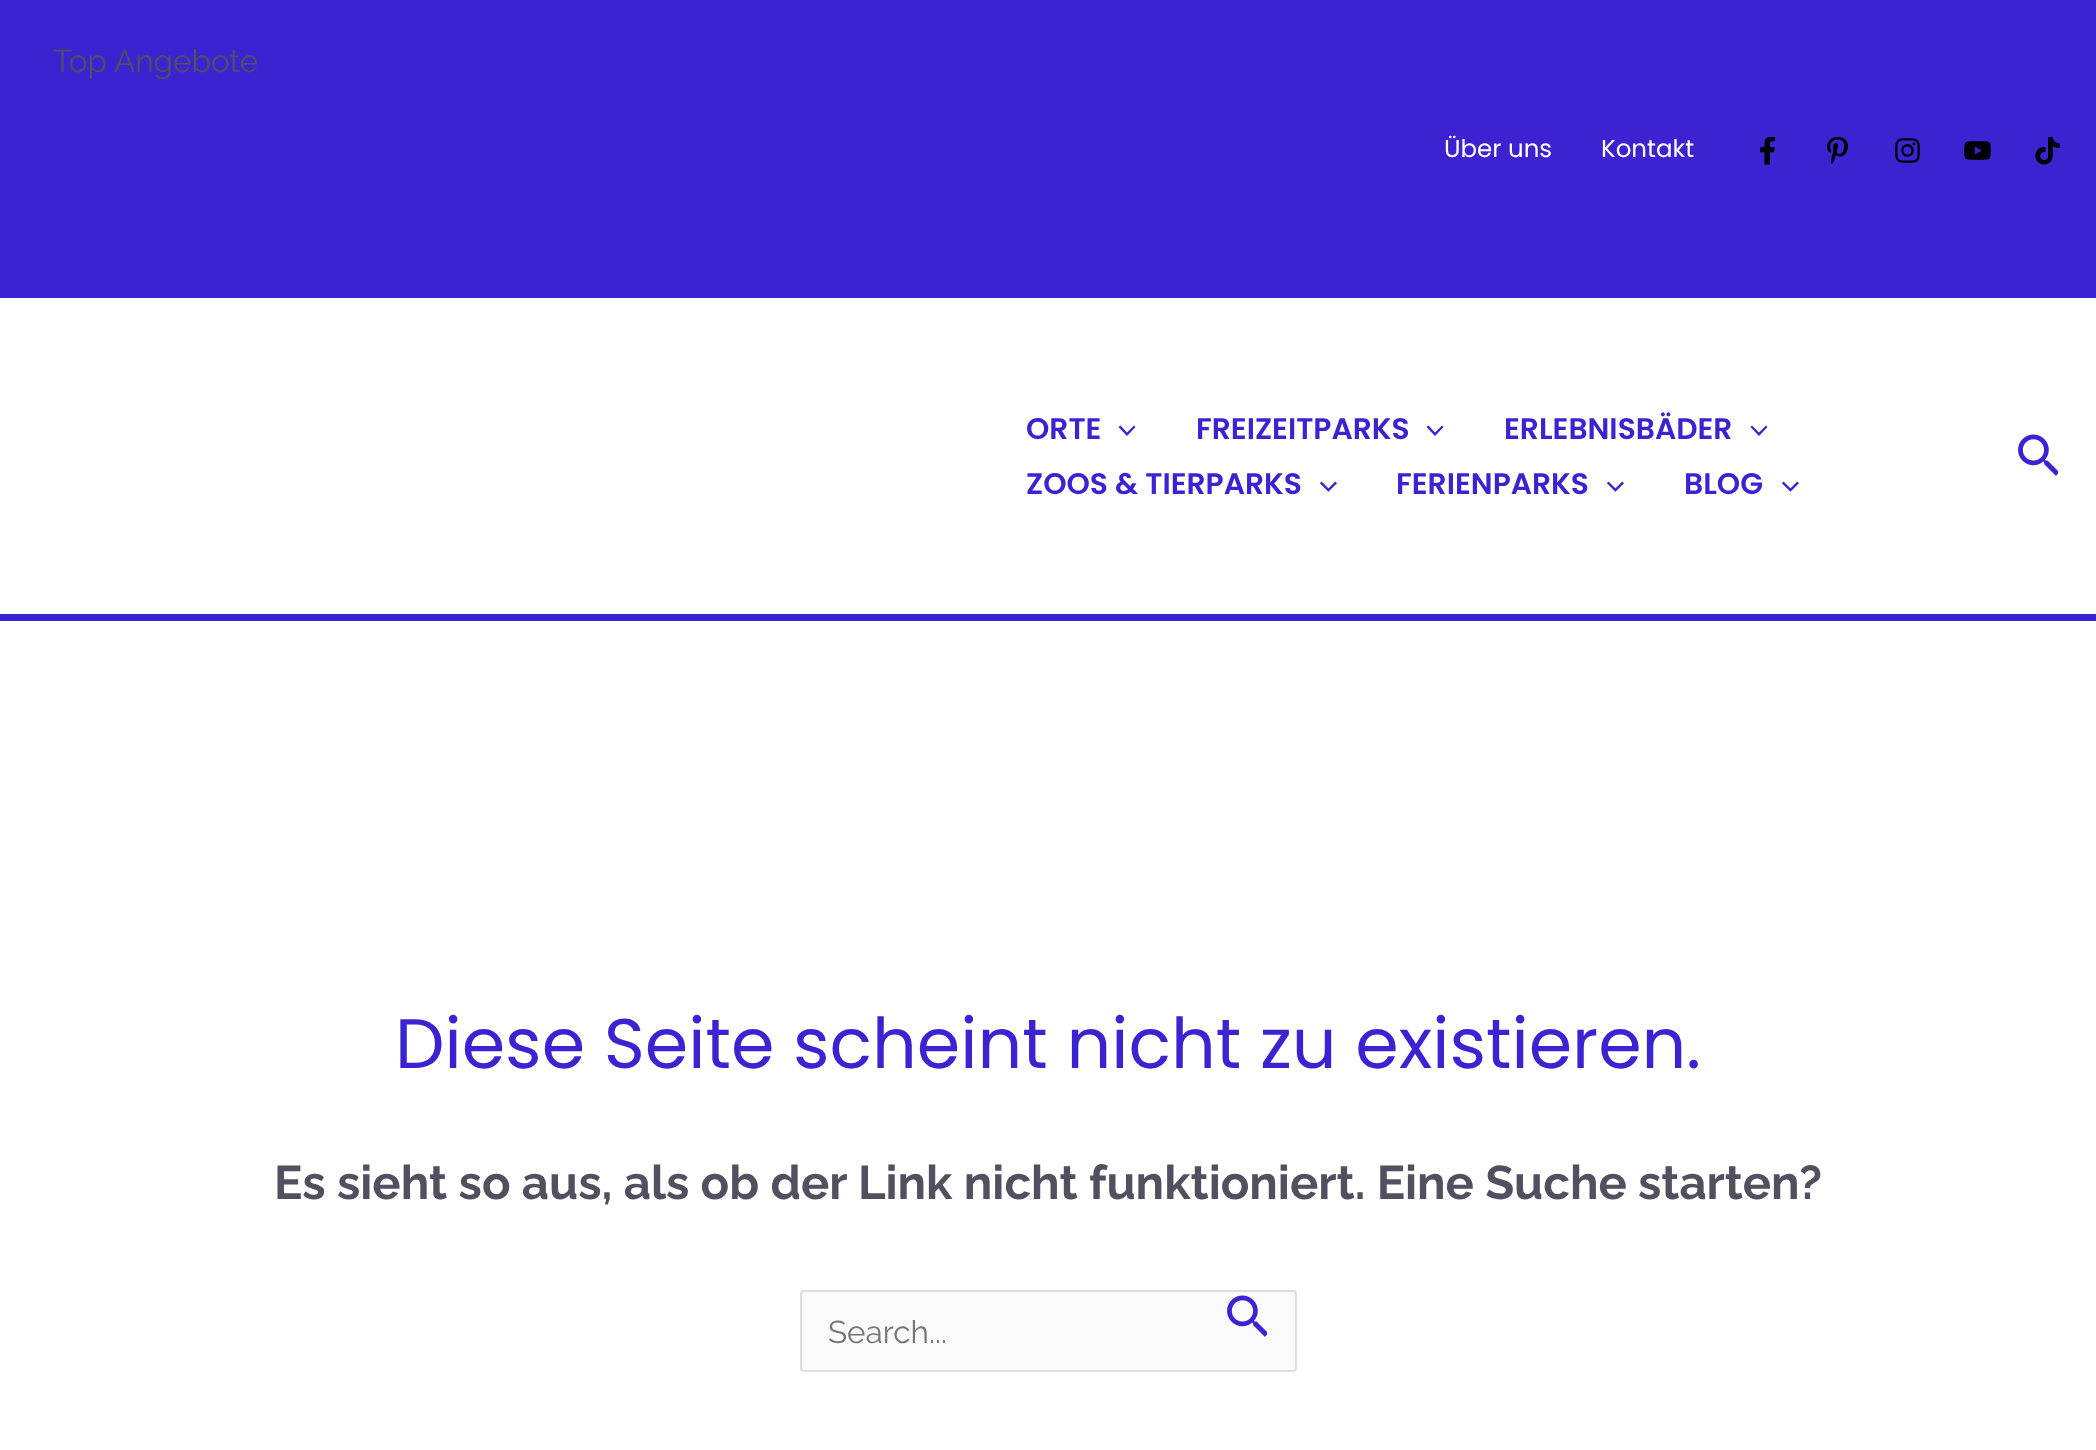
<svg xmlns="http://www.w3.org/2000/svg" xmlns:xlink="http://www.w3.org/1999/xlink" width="2096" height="1450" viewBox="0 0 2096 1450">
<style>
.cls-1{font:31.5px Raleway;fill:#52505e}
.cls-2{font:24.5px Poppins;fill:#ffffff}
.cls-3{font:600 29.75px Poppins;fill:#3c23d2}
.cls-4{font:70px Poppins;fill:#3c23d2}
.cls-5{font:bold 47.25px Raleway;fill:#52505e}
.cls-6{font:31.5px Raleway;fill:#757575}
</style>
<rect width="100%" height="100%" fill="#ffffff"/>
<rect fill="#3c23d2" x="0" y="0" width="2096" height="298"/>
<image xlink:href="image0.png" x="1760" y="137" width="15" height="28"/>
<image xlink:href="image1.png" x="1827" y="137" width="21" height="28"/>
<image xlink:href="image2.png" x="1895" y="138" width="25" height="25"/>
<image xlink:href="image3.png" x="1964" y="141" width="27" height="19"/>
<image xlink:href="image4.png" x="2035" y="137" width="25" height="28"/>
<rect fill="#3c23d2" x="0" y="614" width="2096" height="7"/>
<path fill="#3c23d2" d="M1118.5 427L1127 436L1135.5 427L1134 425.5L1127 432.5L1120.5 425.5Z"/>
<path fill="#3c23d2" d="M1426.5 427L1435 436L1443.5 427L1442 425.5L1435 432.5L1428.5 425.5Z"/>
<path fill="#3c23d2" d="M1750.5 427L1759 436L1767.5 427L1766 425.5L1759 432.5L1752 425.5Z"/>
<image xlink:href="image5.png" x="1320" y="481" width="17" height="11"/>
<image xlink:href="image5.png" x="1607" y="481" width="17" height="11"/>
<image xlink:href="image5.png" x="1782" y="481" width="17" height="11"/>
<image xlink:href="image6.png" x="2018" y="434" width="40" height="42"/>
<rect fill="#fafafa" stroke="#dddddd" stroke-width="2" x="801" y="1291" width="495" height="80" rx="3"/>
<image xlink:href="image7.png" x="1227" y="1295" width="40" height="42"/>
<text class="cls-1" x="53" y="72">Top Angebote</text>
<text class="cls-2" x="1444" y="157">Über uns</text>
<text class="cls-2" x="1601" y="157">Kontakt</text>
<text class="cls-3" x="1026" y="439">ORTE</text>
<text class="cls-3" x="1196" y="439">FREIZEITPARKS</text>
<text class="cls-3" x="1504" y="439">ERLEBNISBÄDER</text>
<text class="cls-3" x="1026" y="494">ZOOS &amp; TIERPARKS</text>
<text class="cls-3" x="1396" y="494">FERIENPARKS</text>
<text class="cls-3" x="1684" y="494">BLOG</text>
<text class="cls-4" x="395" y="1068">Diese Seite scheint nicht zu existieren.</text>
<text class="cls-5" x="274" y="1199">Es sieht so aus, als ob der Link nicht funktioniert. Eine Suche starten?</text>
<text class="cls-6" x="828" y="1343">Search...</text>
</svg>
